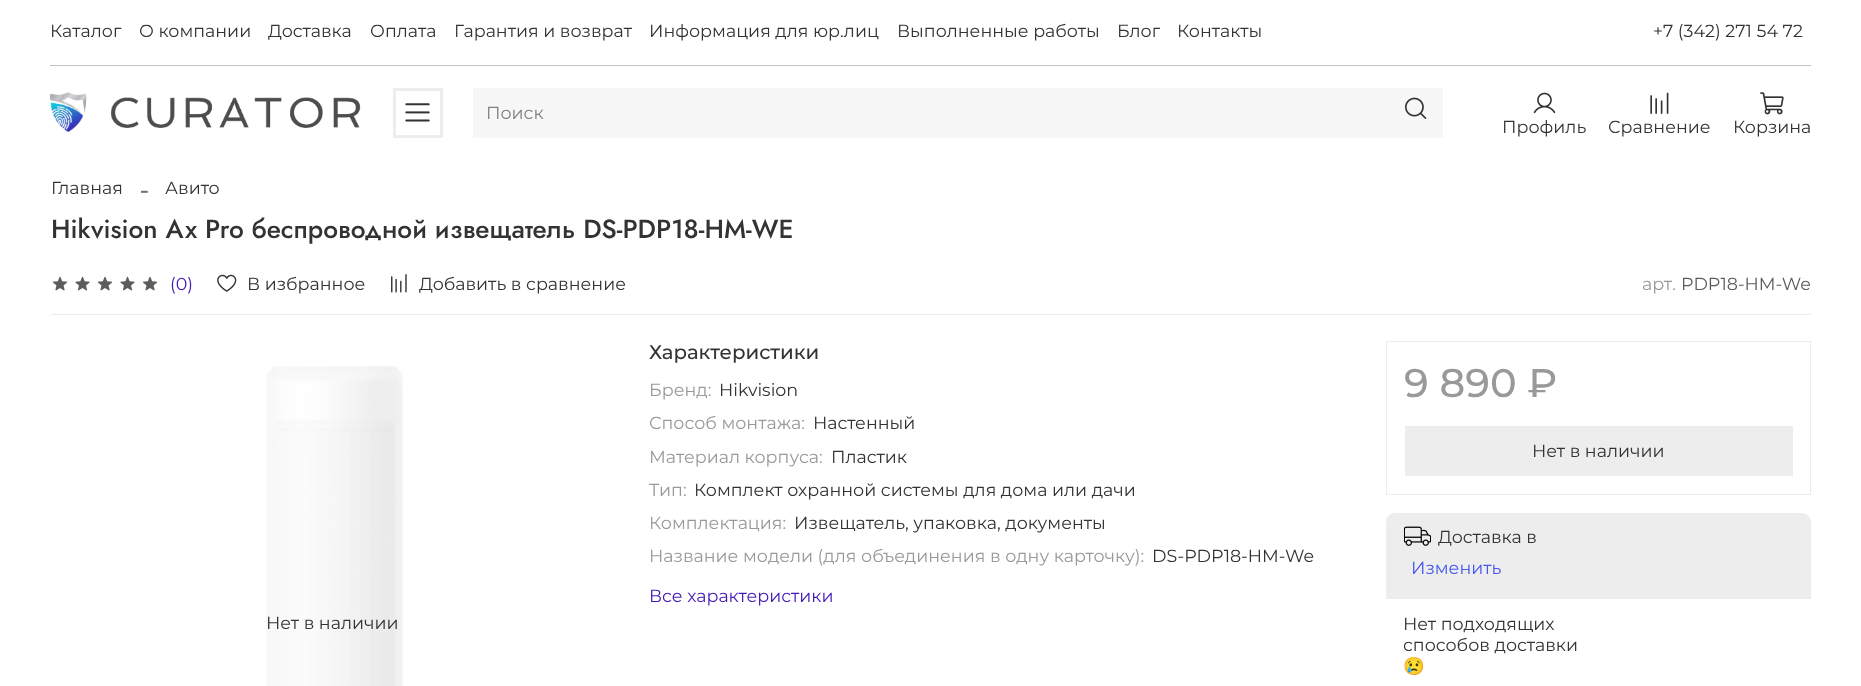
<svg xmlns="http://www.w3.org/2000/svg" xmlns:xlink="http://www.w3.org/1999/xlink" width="1861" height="686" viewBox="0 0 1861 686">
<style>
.cls-1{font:17.5px Montserrat;fill:#333333}
.cls-2{font:17.5px Montserrat;fill:#808080}
.cls-3{font:26.25px Liberation Serif;fill:#707070}
.cls-4{font:500 26.25px Jost;fill:#333333}
.cls-5{font:17.5px Montserrat;fill:#4219b7}
.cls-6{font:17.5px Montserrat;fill:#999999}
.cls-7{font:17.5px Montserrat;fill:#5c5c5c}
.cls-8{font:500 19.75px Montserrat;fill:#333333}
.cls-9{font:500 40px Montserrat;fill:#999999}
.cls-10{font:17.5px Montserrat;fill:#4657ef}
.cls-11{font:17.5px Noto Color Emoji;fill:#333333}
</style>
<rect width="100%" height="100%" fill="#ffffff"/>
<rect fill="#c2c2c2" x="50" y="65" width="1761" height="1"/>
<image xlink:href="image0.png" x="50" y="92" width="311" height="40"/>
<rect fill="none" stroke="#ededed" stroke-width="3" x="394.5" y="89.5" width="47" height="47"/>
<image xlink:href="image1.png" x="405" y="103" width="25" height="19"/>
<rect fill="#f7f7f7" x="473" y="88" width="970" height="50"/>
<image xlink:href="image2.png" x="1405" y="97" width="22" height="22"/>
<image xlink:href="image3.png" x="1533" y="92" width="23" height="22"/>
<image xlink:href="image4.png" x="1650" y="92" width="19" height="22"/>
<image xlink:href="image5.png" x="1760" y="92" width="24" height="23"/>
<image xlink:href="image6.png" x="52" y="276" width="16" height="15"/>
<image xlink:href="image7.png" x="75" y="276" width="15" height="15"/>
<image xlink:href="image6.png" x="97" y="276" width="16" height="15"/>
<image xlink:href="image7.png" x="120" y="276" width="15" height="15"/>
<image xlink:href="image6.png" x="142" y="276" width="16" height="15"/>
<image xlink:href="image8.png" x="217" y="274" width="20" height="18"/>
<image xlink:href="image9.png" x="391" y="274" width="16" height="19"/>
<rect fill="#ededed" x="51" y="314" width="1760" height="1"/>
<rect fill="none" stroke="#ededed" x="1386.5" y="341.5" width="424" height="153"/>
<rect fill="#ededed" x="1405" y="426" width="388" height="50"/>
<image xlink:href="image10.png" x="266" y="366" width="137" height="320"/>
<path fill="#ededed" d="M1395 513H1802C1807 513 1811 517 1811 522V599H1386V522C1386 517 1390 513 1395 513Z"/>
<image xlink:href="image11.png" x="1404" y="526" width="27" height="20"/>
<text class="cls-1" x="50" y="37">Каталог</text>
<text class="cls-1" x="139" y="37">О компании</text>
<text class="cls-1" x="268" y="37">Доставка</text>
<text class="cls-1" x="370" y="37">Оплата</text>
<text class="cls-1" x="454" y="37">Гарантия и возврат</text>
<text class="cls-1" x="649" y="37">Информация для юр.лиц</text>
<text class="cls-1" x="897" y="37">Выполненные работы</text>
<text class="cls-1" x="1117" y="37">Блог</text>
<text class="cls-1" x="1177" y="37">Контакты</text>
<text class="cls-1" x="1653" y="37">+7 (342) 271 54 72</text>
<text class="cls-2" x="486" y="119">Поиск</text>
<text class="cls-1" x="1502" y="133">Профиль</text>
<text class="cls-1" x="1608" y="133">Сравнение</text>
<text class="cls-1" x="1733" y="133">Корзина</text>
<text class="cls-1" x="51" y="194">Главная</text>
<text class="cls-3" x="140" y="198">-</text>
<text class="cls-1" x="165" y="194">Авито</text>
<text class="cls-4" x="51" y="238">Hikvision Ax Pro беспроводной извещатель DS-PDP18-HM-WE</text>
<text class="cls-5" x="170" y="290">(0)</text>
<text class="cls-1" x="247" y="290">В избранное</text>
<text class="cls-1" x="419" y="290">Добавить в сравнение</text>
<text class="cls-6" x="1642" y="290">арт.</text>
<text class="cls-7" x="1681" y="290">PDP18-HM-We</text>
<text class="cls-8" x="649" y="359">Характеристики</text>
<text class="cls-6" x="649" y="396">Бренд:</text>
<text class="cls-1" x="719" y="396">Hikvision</text>
<text class="cls-6" x="649" y="429">Способ монтажа:</text>
<text class="cls-1" x="813" y="429">Настенный</text>
<text class="cls-6" x="649" y="463">Материал корпуса:</text>
<text class="cls-1" x="831" y="463">Пластик</text>
<text class="cls-6" x="649" y="496">Тип:</text>
<text class="cls-1" x="694" y="496">Комплект охранной системы для дома или дачи</text>
<text class="cls-6" x="649" y="529">Комплектация:</text>
<text class="cls-1" x="794" y="529">Извещатель, упаковка, документы</text>
<text class="cls-6" x="649" y="562">Название модели (для объединения в одну карточку):</text>
<text class="cls-1" x="1152" y="562">DS-PDP18-HM-We</text>
<text class="cls-5" x="649" y="602">Все характеристики</text>
<text class="cls-9" x="1404" y="397">9 890 ₽</text>
<text class="cls-1" x="1532" y="457">Нет в наличии</text>
<text class="cls-1" x="266" y="629">Нет в наличии</text>
<text class="cls-1" x="1438" y="543">Доставка в</text>
<text class="cls-10" x="1411" y="574">Изменить</text>
<text class="cls-1"><tspan x="1403" y="630">Нет подходящих</tspan><tspan x="1403" y="651">способов доставки</tspan></text>
<text class="cls-11" x="1403" y="672">😢</text>
</svg>
